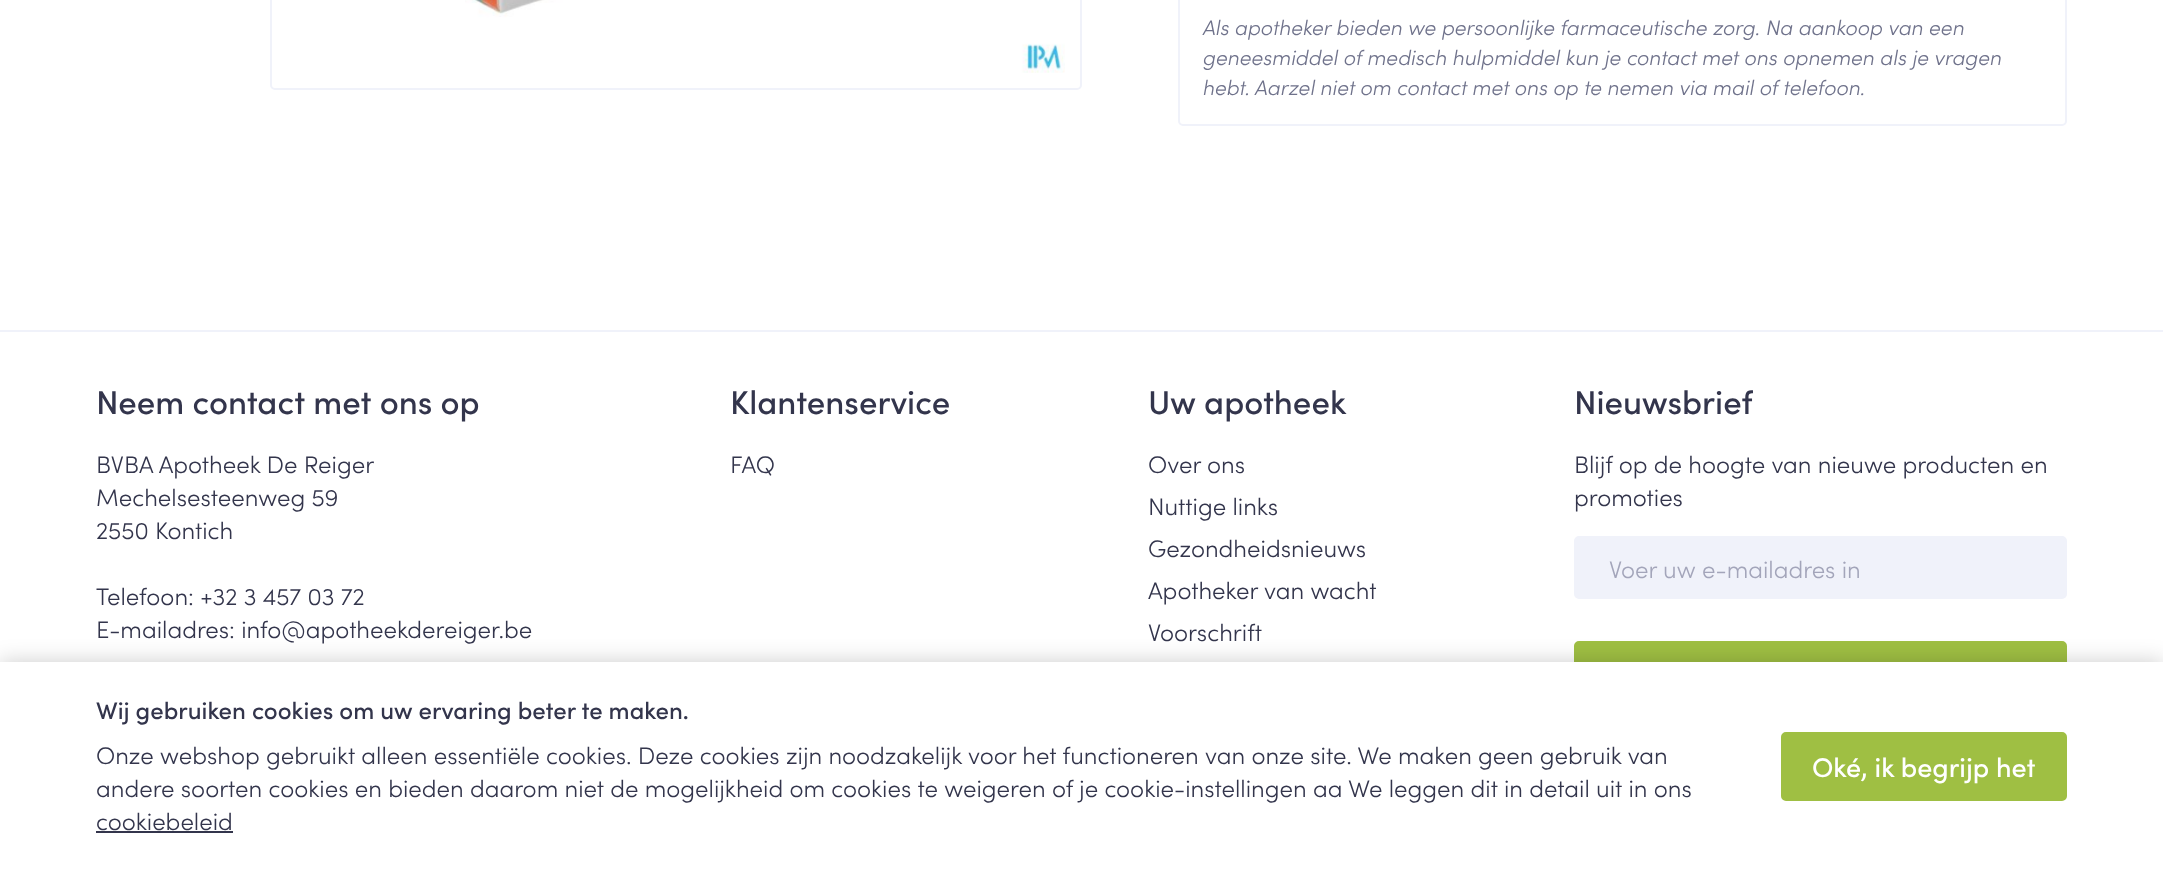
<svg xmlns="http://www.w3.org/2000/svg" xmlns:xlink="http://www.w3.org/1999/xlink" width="2163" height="871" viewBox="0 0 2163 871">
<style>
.cls-1{font:italic 300 21px Sofia;fill:#6f728b}
.cls-2{font:500 33px Sofia;fill:#33354c}
.cls-3{font:300 24px Sofia;fill:#33354c}
.cls-4{font:300 24px Sofia;fill:#a3a5ba}
.cls-5{font:500 24px Sofia;fill:#33354c}
.cls-6{font:500 27px Sofia;fill:#ffffff}
</style>
<rect width="100%" height="100%" fill="#ffffff"/>
<rect fill="none" stroke="#f0f2fa" stroke-width="2" x="271" y="-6" width="810" height="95" rx="4"/>
<image xlink:href="image0.png" x="465" y="0" width="600" height="73"/>
<rect fill="none" stroke="#f0f2fa" stroke-width="2" x="1179" y="-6" width="887" height="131" rx="4"/>
<rect fill="#f0f2fa" x="0" y="330" width="2163" height="2"/>
<rect fill="#f0f2fa" stroke="#f0f2fa" stroke-width="2" x="1575" y="537" width="491" height="61" rx="4"/>
<rect fill="#9fbf43" stroke="#9fbf43" stroke-width="2" x="1575" y="642" width="491" height="61" rx="4"/>
<rect fill="#000000" fill-opacity="0.2" filter="blur(11px)" x="0" y="662" width="2163" height="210"/>
<rect fill="#ffffff" x="0" y="662" width="2163" height="209"/>
<rect fill="#33354c" x="96" y="831" width="137" height="2"/>
<rect fill="#9fbf43" stroke="#9fbf43" stroke-width="2" x="1782" y="733" width="284" height="67" rx="4"/>
<text class="cls-1"><tspan x="1203" y="35">Als apotheker bieden we persoonlijke farmaceutische zorg. Na aankoop van een</tspan><tspan x="1203" y="65">geneesmiddel of medisch hulpmiddel kun je contact met ons opnemen als je vragen</tspan><tspan x="1203" y="95">hebt. Aarzel niet om contact met ons op te nemen via mail of telefoon.</tspan></text>
<text class="cls-2" x="96" y="414">Neem contact met ons op</text>
<text class="cls-3"><tspan x="96" y="473">BVBA Apotheek De Reiger</tspan><tspan x="96" y="506">Mechelsesteenweg 59</tspan><tspan x="96" y="539">2550 Kontich</tspan></text>
<text class="cls-3"><tspan x="96" y="605">Telefoon: +32 3 457 03 72</tspan><tspan x="96" y="638">E-mailadres: info@apotheekdereiger.be</tspan></text>
<text class="cls-2" x="730" y="414">Klantenservice</text>
<text class="cls-3" x="730" y="473">FAQ</text>
<text class="cls-2" x="1148" y="414">Uw apotheek</text>
<text class="cls-3"><tspan x="1148" y="473">Over ons</tspan><tspan x="1148" y="515">Nuttige links</tspan><tspan x="1148" y="557">Gezondheidsnieuws</tspan><tspan x="1148" y="599">Apotheker van wacht</tspan><tspan x="1148" y="641">Voorschrift</tspan></text>
<text class="cls-2" x="1574" y="414">Nieuwsbrief</text>
<text class="cls-3"><tspan x="1574" y="473">Blijf op de hoogte van nieuwe producten en</tspan><tspan x="1574" y="506">promoties</tspan></text>
<text class="cls-4" x="1609" y="578">Voer uw e-mailadres in</text>
<text class="cls-5" x="96" y="719">Wij gebruiken cookies om uw ervaring beter te maken.</text>
<text class="cls-3"><tspan x="96" y="764">Onze webshop gebruikt alleen essentiële cookies. Deze cookies zijn noodzakelijk voor het functioneren van onze site. We maken geen gebruik van</tspan><tspan x="96" y="797">andere soorten cookies en bieden daarom niet de mogelijkheid om cookies te weigeren of je cookie-instellingen aa We leggen dit in detail uit in ons</tspan><tspan x="96" y="830">cookiebeleid</tspan></text>
<text class="cls-6" x="1812" y="777">Oké, ik begrijp het</text>
</svg>
